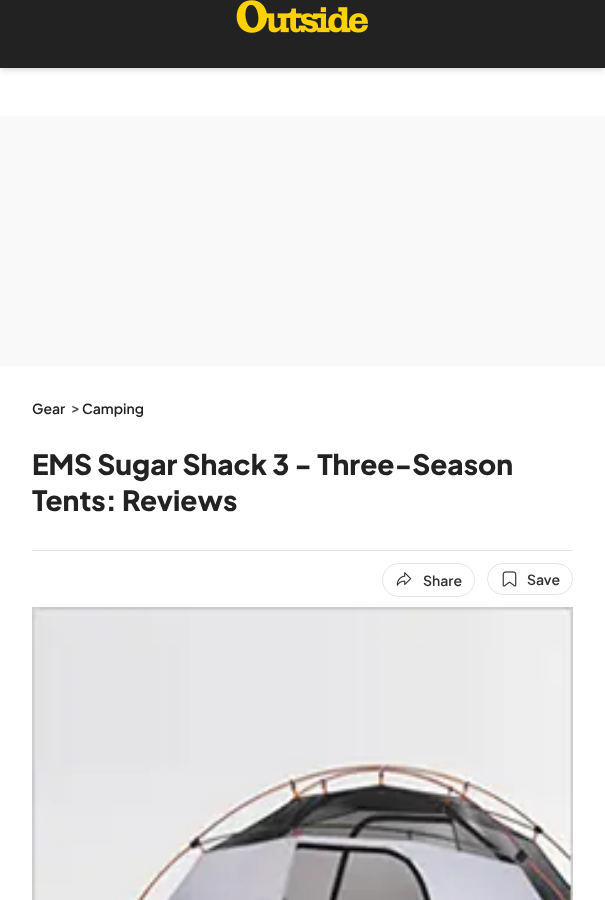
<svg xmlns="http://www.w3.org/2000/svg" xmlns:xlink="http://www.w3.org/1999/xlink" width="605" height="900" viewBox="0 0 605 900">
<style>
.cls-1{font:600 14px Plus Jakarta Sans;fill:#222222}
.cls-2{font:600 14px Plus Jakarta Sans;fill:#4e4e4e}
.cls-3{font:800 28px Plus Jakarta Sans;fill:#222222}
.cls-4{font:600 14px Plus Jakarta Sans;fill:#333333}
</style>
<rect width="100%" height="100%" fill="#ffffff"/>
<rect fill="#000000" fill-opacity="0.1" filter="blur(2px)" x="2" y="4" width="601" height="64"/>
<rect fill="#000000" fill-opacity="0.1" filter="blur(3px)" x="1" y="5" width="603" height="66"/>
<rect fill="#222222" x="0" y="0" width="605" height="68"/>
<image xlink:href="image0.png" x="236" y="0" width="132" height="33"/>
<rect fill="#f9f9f9" x="0" y="116" width="605" height="250"/>
<rect fill="#e5e5e5" x="32" y="550" width="541" height="1"/>
<rect fill="none" stroke="#e5e5e5" x="382.5" y="563.5" width="92" height="33" rx="16.5"/>
<image xlink:href="image1.png" x="396" y="572" width="16" height="14"/>
<rect fill="none" stroke="#e5e5e5" x="487.5" y="563.5" width="85" height="31" rx="15.5"/>
<image xlink:href="image2.png" x="502" y="571" width="15" height="16"/>
<image xlink:href="image3.png" x="32" y="607" width="541" height="293"/>
<text class="cls-1" x="32" y="414">Gear</text>
<text class="cls-2" x="71" y="413">&gt;</text>
<text class="cls-1" x="82" y="414">Camping</text>
<text class="cls-3"><tspan x="32" y="475">EMS Sugar Shack 3 - Three-Season</tspan><tspan x="32" y="511">Tents: Reviews</tspan></text>
<text class="cls-4" x="423" y="586">Share</text>
<text class="cls-4" x="527" y="585">Save</text>
</svg>
